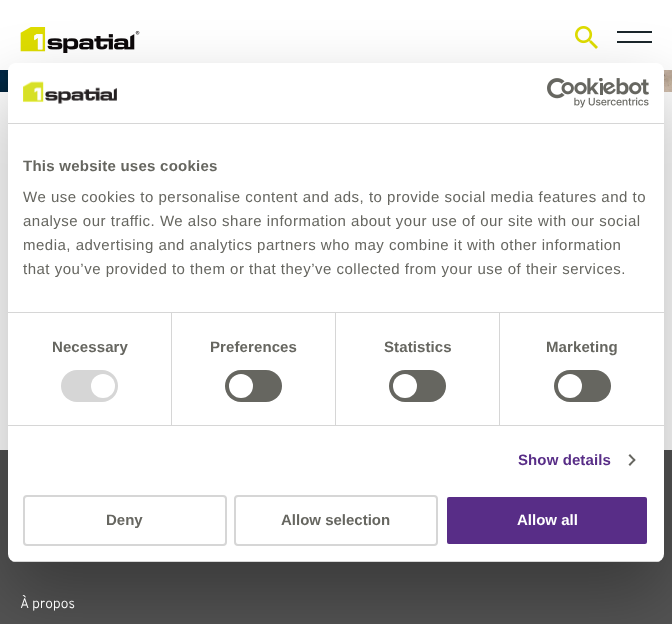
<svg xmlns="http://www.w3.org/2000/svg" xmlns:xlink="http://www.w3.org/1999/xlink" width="672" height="624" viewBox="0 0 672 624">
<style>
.cls-1{font:bold 15px Liberation Sans;letter-spacing:0.25px;fill:#666660}
.cls-2{font:15px Liberation Sans;letter-spacing:0.5px;fill:#666660}
.cls-3{font:bold 15px Liberation Sans;letter-spacing:0.1px;fill:#666660}
.cls-4{font:bold 15px Liberation Sans;letter-spacing:0.1px;fill:#582d87}
.cls-5{font:bold 15px Liberation Sans;fill:#666660}
.cls-6{font:bold 15px Liberation Sans;fill:#ffffff}
.cls-7{font:300 14px Overpass;fill:#ffffff}
</style>
<defs>
<clipPath id="clip1"><rect x="8" y="63" width="656" height="499" rx="8"/></clipPath>
</defs>
<rect width="100%" height="100%" fill="#ffffff"/>
<image xlink:href="image2.png" x="0" y="70" width="672" height="22"/>
<rect fill="#000000" fill-opacity="0.12" filter="blur(7.5px)" x="0" y="0" width="672" height="70"/>
<rect fill="#ffffff" x="0" y="0" width="672" height="70"/>
<image xlink:href="image0.png" x="20" y="27" width="120" height="26"/>
<image xlink:href="image1.png" x="575" y="26" width="23" height="23"/>
<rect fill="#1b262b" x="617" y="31" width="35" height="2"/>
<rect fill="#1b262b" x="617" y="41" width="35" height="2"/>
<rect fill="#535353" x="0" y="450" width="672" height="174"/>
<rect fill="#000000" fill-opacity="0.3" filter="blur(34px)" x="8" y="95" width="656" height="499" rx="8"/>
<rect fill="#ffffff" x="8" y="63" width="656" height="499" rx="8"/>
<rect fill="#d6d6d6" x="8" y="123" width="656" height="1"/>
<image xlink:href="image3.png" x="23" y="81" width="94" height="23"/>
<image xlink:href="image4.png" x="547" y="78" width="102" height="30"/>
<rect fill="#d6d6d6" x="8" y="312" width="656" height="1"/>
<rect fill="#d6d6d6" x="8" y="425" width="656" height="1"/>
<rect fill="#d6d6d6" x="171" y="313" width="1" height="112"/>
<rect fill="#d6d6d6" x="61" y="370" width="57" height="32" rx="16"/>
<circle fill="#ffffff" cx="103" cy="386" r="12"/>
<rect fill="#d6d6d6" x="335" y="313" width="1" height="112"/>
<rect fill="#666660" x="225" y="370" width="57" height="32" rx="16"/>
<circle fill="#ffffff" cx="241" cy="386" r="12"/>
<rect fill="#d6d6d6" x="499" y="313" width="1" height="112"/>
<rect fill="#666660" x="389" y="370" width="57" height="32" rx="16"/>
<circle fill="#ffffff" cx="405" cy="386" r="12"/>
<rect fill="#666660" x="554" y="370" width="57" height="32" rx="16"/>
<circle fill="#ffffff" cx="570" cy="386" r="12"/>
<path fill="#666660" d="M630 454L635.5 460L634.5 461.5L628.5 455.5Z"/>
<path fill="#666660" d="M634.5 458.5L635.5 460L630 466L628.5 464.5Z"/>
<g clip-path="url(#clip1)">
<rect fill="#d6d6d6" x="8" y="561" width="656" height="1"/>
</g>
<rect fill="none" stroke="#d6d6d6" stroke-width="2" x="24" y="496" width="202" height="49" rx="3"/>
<rect fill="none" stroke="#d6d6d6" stroke-width="2" x="235" y="496" width="202" height="49" rx="3"/>
<rect fill="#582d87" stroke="#ffffff" stroke-width="2" x="446" y="496" width="202" height="49" rx="3"/>
<text class="cls-1" x="23" y="171">This website uses cookies</text>
<text class="cls-2"><tspan x="23" y="202">We use cookies to personalise content and ads, to provide social media features and to</tspan><tspan x="23" y="226">analyse our traffic. We also share information about your use of our site with our social</tspan><tspan x="23" y="250">media, advertising and analytics partners who may combine it with other information</tspan><tspan x="23" y="274">that you’ve provided to them or that they’ve collected from your use of their services.</tspan></text>
<text class="cls-3" x="52" y="352">Necessary</text>
<text class="cls-3" x="210" y="352">Preferences</text>
<text class="cls-3" x="384" y="352">Statistics</text>
<text class="cls-3" x="546" y="352">Marketing</text>
<text class="cls-4" x="518" y="465">Show details</text>
<text class="cls-5" x="106" y="525">Deny</text>
<text class="cls-5" x="281" y="525">Allow selection</text>
<text class="cls-6" x="517" y="525">Allow all</text>
<text class="cls-7" x="20" y="608">À propos</text>
</svg>
